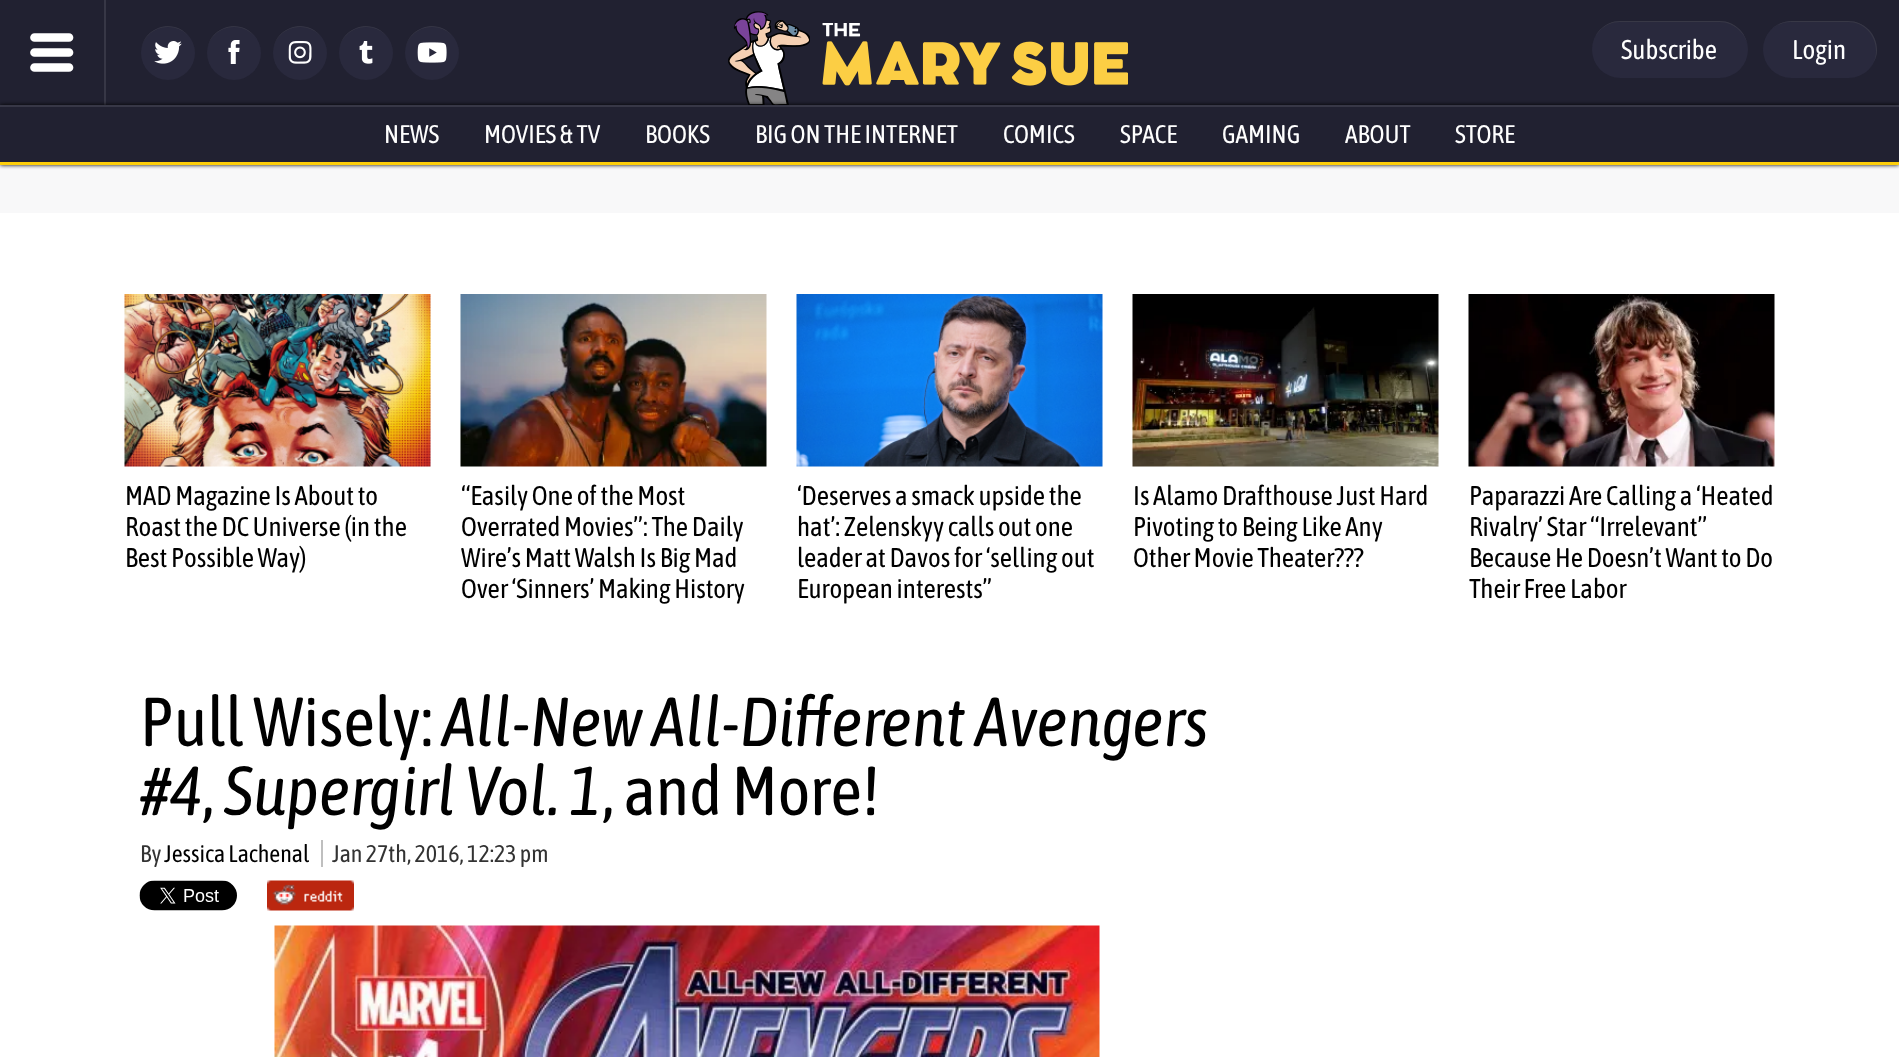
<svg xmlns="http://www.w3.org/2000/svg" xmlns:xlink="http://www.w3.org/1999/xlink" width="1899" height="1057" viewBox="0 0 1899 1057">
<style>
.cls-1{font:27px Asap Condensed;fill:#fefefe}
.cls-2{font:25.5px Asap Condensed;fill:#fefefe}
.cls-3{font:27px Asap Condensed;fill:#000000}
.cls-4{font:69px Asap Condensed;fill:#000000}
.cls-5{font:italic 69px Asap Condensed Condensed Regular;fill:#000000}
.cls-6{font:24px Asap Condensed;fill:#333333}
.cls-7{font:24px Asap Condensed;fill:#000000}
</style>
<rect width="100%" height="100%" fill="#ffffff"/>
<rect fill="#212131" x="0" y="0" width="1899" height="105"/>
<rect fill="#373746" x="104" y="0" width="2" height="105"/>
<path fill="none" stroke="#ffffff" stroke-width="8.7" stroke-linecap="round" d="M34.5 37.5H69M34.5 52.5H69M34.5 67.5H69"/>
<circle fill="#29293d" cx="168" cy="53" r="27"/>
<path fill="#383846" d="M168 27C183 27 195 39 195 53C195 48 193 42 190 38C175 16 141 27 141 53C141 39 153 27 168 27Z"/>
<image xlink:href="image0.png" x="154" y="41" width="28" height="23"/>
<circle fill="#29293d" cx="234" cy="53" r="27"/>
<path fill="#383846" d="M234 27C249 27 261 39 261 53C261 48 259 42 256 38C241 16 207 27 207 53C207 39 219 27 234 27Z"/>
<image xlink:href="image1.png" x="228" y="40" width="12" height="24"/>
<circle fill="#29293d" cx="300" cy="53" r="27"/>
<path fill="#383846" d="M300 27C315 27 327 39 327 53C327 48 325 42 322 38C307 16 273 27 273 53C273 39 285 27 300 27Z"/>
<image xlink:href="image2.png" x="288" y="41" width="24" height="23"/>
<circle fill="#29293d" cx="366" cy="53" r="27"/>
<path fill="#383846" d="M366 27C381 27 393 39 393 53C393 48 391 42 388 38C373 16 339 27 339 53C339 39 351 27 366 27Z"/>
<image xlink:href="image3.png" x="359" y="41" width="14" height="23"/>
<circle fill="#29293d" cx="432" cy="53" r="27"/>
<path fill="#383846" d="M432 27C447 27 459 39 459 53C459 48 457 42 454 38C439 16 405 27 405 53C405 39 417 27 432 27Z"/>
<image xlink:href="image4.png" x="417" y="42" width="30" height="21"/>
<image xlink:href="image5.png" x="728" y="11" width="82" height="94"/>
<image xlink:href="image6.png" x="822" y="23" width="306" height="63"/>
<rect fill="#29293d" x="1592" y="21" width="156" height="57" rx="28.5"/>
<path fill="#383846" d="M1620 22H1719C1735 22 1748 35 1748 50C1748 34 1735 21 1720 21H1620C1605 21 1592 34 1592 50C1592 35 1604 22 1620 22Z"/>
<rect fill="#29293d" x="1763" y="21" width="114" height="57" rx="28.5"/>
<path fill="#383846" d="M1791 22H1848C1864 22 1876 35 1876 51C1876 55 1875 60 1873 63C1876 59 1877 54 1877 50C1877 34 1864 21 1848 21H1792C1782 21 1773 26 1768 33C1773 26 1782 22 1791 22Z"/>
<rect fill="#f8f8f9" x="0" y="165" width="1899" height="48"/>
<rect fill="#000000" filter="blur(2px)" x="0" y="105" width="1899" height="60"/>
<rect fill="#212131" x="0" y="107" width="1899" height="55"/>
<rect fill="#373746" x="0" y="105" width="1899" height="2"/>
<rect fill="#fdce0b" x="0" y="162" width="1899" height="3"/>
<image xlink:href="image7.png" x="124" y="294" width="307" height="173"/>
<image xlink:href="image8.png" x="460" y="294" width="307" height="173"/>
<image xlink:href="image9.png" x="796" y="294" width="307" height="173"/>
<image xlink:href="image10.png" x="1132" y="294" width="307" height="173"/>
<image xlink:href="image11.png" x="1468" y="294" width="307" height="173"/>
<rect fill="#bfbfbf" x="321" y="840" width="2" height="27"/>
<image xlink:href="image12.png" x="139" y="880" width="98" height="31"/>
<image xlink:href="image13.png" x="267" y="880" width="87" height="31"/>
<image xlink:href="image14.png" x="274" y="925" width="826" height="132"/>
<text class="cls-1" x="1621" y="59">Subscribe</text>
<text class="cls-1" x="1792" y="59">Login</text>
<text class="cls-2" x="384" y="143">NEWS</text>
<text class="cls-2" x="484" y="143">MOVIES &amp; TV</text>
<text class="cls-2" x="645" y="143">BOOKS</text>
<text class="cls-2" x="755" y="143">BIG ON THE INTERNET</text>
<text class="cls-2" x="1003" y="143">COMICS</text>
<text class="cls-2" x="1120" y="143">SPACE</text>
<text class="cls-2" x="1222" y="143">GAMING</text>
<text class="cls-2" x="1345" y="143">ABOUT</text>
<text class="cls-2" x="1455" y="143">STORE</text>
<text class="cls-3"><tspan x="125" y="505">MAD Magazine Is About to</tspan><tspan x="125" y="536">Roast the DC Universe (in the</tspan><tspan x="125" y="567">Best Possible Way)</tspan></text>
<text class="cls-3"><tspan x="461" y="505">“Easily One of the Most</tspan><tspan x="461" y="536">Overrated Movies”: The Daily</tspan><tspan x="461" y="567">Wire’s Matt Walsh Is Big Mad</tspan><tspan x="461" y="598">Over ‘Sinners’ Making History</tspan></text>
<text class="cls-3"><tspan x="797" y="505">‘Deserves a smack upside the</tspan><tspan x="797" y="536">hat’: Zelenskyy calls out one</tspan><tspan x="797" y="567">leader at Davos for ‘selling out</tspan><tspan x="797" y="598">European interests’’</tspan></text>
<text class="cls-3"><tspan x="1133" y="505">Is Alamo Drafthouse Just Hard</tspan><tspan x="1133" y="536">Pivoting to Being Like Any</tspan><tspan x="1133" y="567">Other Movie Theater???</tspan></text>
<text class="cls-3"><tspan x="1469" y="505">Paparazzi Are Calling a ‘Heated</tspan><tspan x="1469" y="536">Rivalry’ Star “Irrelevant”</tspan><tspan x="1469" y="567">Because He Doesn’t Want to Do</tspan><tspan x="1469" y="598">Their Free Labor</tspan></text>
<text class="cls-4" x="140" y="746">Pull Wisely:</text>
<text class="cls-5" x="442" y="746">All-New All-Different Avengers</text>
<text class="cls-5" x="140" y="815">#4</text>
<text class="cls-4" x="202" y="815">,</text>
<text class="cls-5" x="224" y="815">Supergirl Vol. 1</text>
<text class="cls-4" x="602" y="815">, and More!</text>
<text class="cls-6" x="140" y="862">By</text>
<text class="cls-7" x="164" y="862">Jessica Lachenal</text>
<text class="cls-6" x="332" y="862">Jan 27th, 2016, 12:23 pm</text>
</svg>
